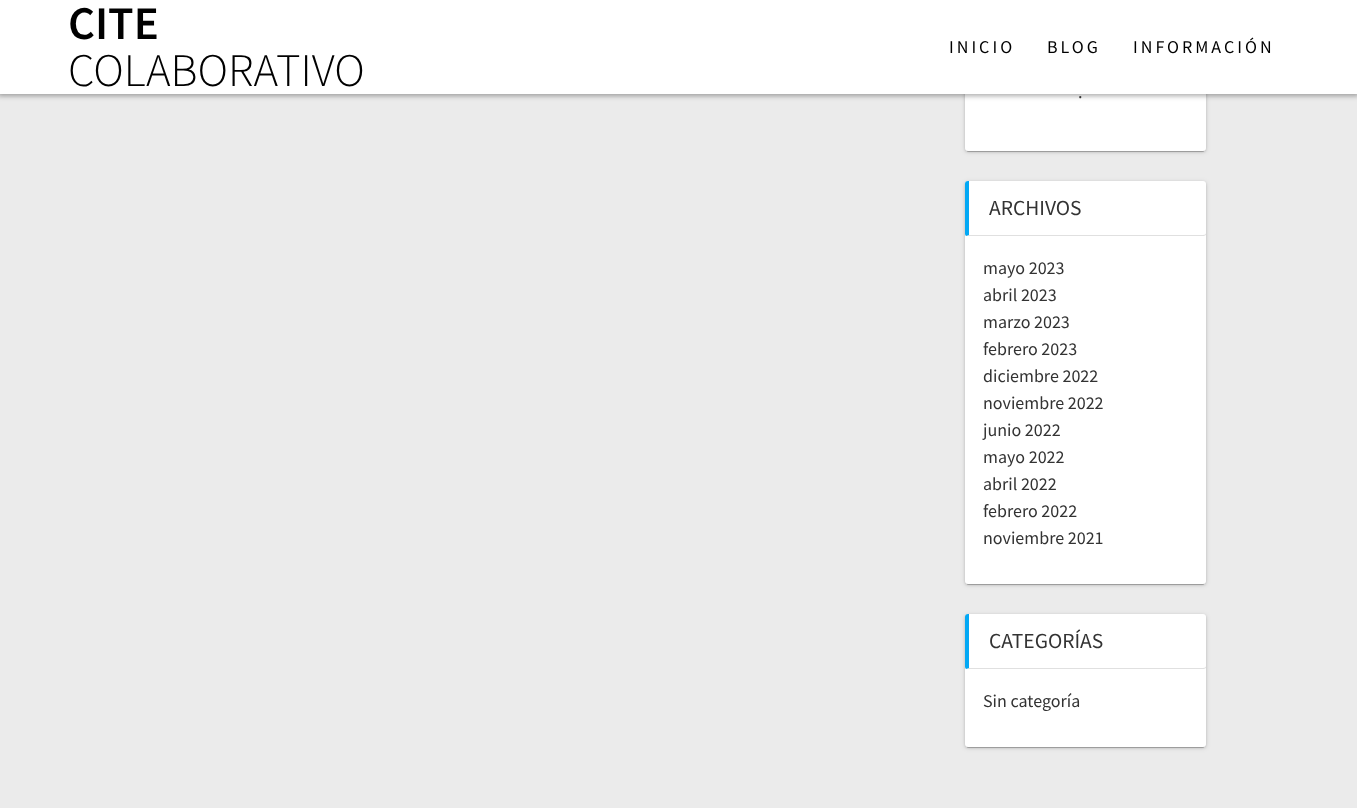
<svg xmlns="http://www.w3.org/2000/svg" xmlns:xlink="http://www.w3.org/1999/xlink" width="1357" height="808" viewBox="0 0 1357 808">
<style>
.cls-1{font:600 46.75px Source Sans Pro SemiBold;fill:#000000}
.cls-2{font:300 46.75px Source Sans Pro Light;fill:#000000}
.cls-3{font:18px Source Sans Pro;letter-spacing:3px;fill:#000000}
.cls-4{font:18px Source Sans Pro;fill:#333333}
.cls-5{font:21.5px Source Sans Pro;fill:#333333}
</style>
<rect width="100%" height="100%" fill="#ebebeb"/>
<rect fill="#000000" fill-opacity="0.12" filter="blur(2.5px)" x="965" y="-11" width="241" height="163" rx="3"/>
<rect fill="#000000" fill-opacity="0.2" filter="blur(0.5px)" x="967" y="-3" width="237" height="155" rx="1"/>
<rect fill="#000000" fill-opacity="0.14" filter="blur(1px)" x="965" y="-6" width="241" height="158" rx="3"/>
<rect fill="#ffffff" x="965" y="-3" width="241" height="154" rx="3"/>
<rect fill="#000000" fill-opacity="0.33" filter="blur(2.5px)" x="-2" y="-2" width="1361" height="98"/>
<rect fill="#ffffff" x="0" y="0" width="1357" height="94"/>
<rect fill="#000000" fill-opacity="0.12" filter="blur(2.5px)" x="965" y="182" width="241" height="403" rx="3"/>
<rect fill="#000000" fill-opacity="0.2" filter="blur(0.5px)" x="967" y="186" width="237" height="399" rx="1"/>
<rect fill="#000000" fill-opacity="0.14" filter="blur(1px)" x="965" y="182" width="241" height="403" rx="3"/>
<rect fill="#ffffff" x="965" y="181" width="241" height="403" rx="3"/>
<path fill="#e0e0e0" d="M968 236H1204L1206 235V233C1206 234 1205 235 1203 235H969L966 236Z"/>
<path fill="#03a8f4" d="M968 181H969V235L966 236C965 235 965 234 965 233V184C965 182 966 181 968 181Z"/>
<rect fill="#000000" fill-opacity="0.12" filter="blur(2.5px)" x="965" y="615" width="241" height="133" rx="3"/>
<rect fill="#000000" fill-opacity="0.2" filter="blur(0.5px)" x="967" y="619" width="237" height="129" rx="1"/>
<rect fill="#000000" fill-opacity="0.14" filter="blur(1px)" x="965" y="615" width="241" height="133" rx="3"/>
<rect fill="#ffffff" x="965" y="614" width="241" height="133" rx="3"/>
<path fill="#e0e0e0" d="M968 669H1204L1206 668V666C1206 667 1205 668 1203 668H969L966 669Z"/>
<path fill="#03a8f4" d="M968 614H969V668L966 669C965 668 965 667 965 666V617C965 615 966 614 968 614Z"/>
<text class="cls-1" x="68" y="39">CITE</text>
<text class="cls-2" x="68" y="86">COLABORATIVO</text>
<text class="cls-3" x="949" y="53">INICIO</text>
<text class="cls-3" x="1047" y="53">BLOG</text>
<text class="cls-3" x="1133" y="53">INFORMACIÓN</text>
<text class="cls-4" x="1078" y="98">.</text>
<text class="cls-5" x="989" y="215">ARCHIVOS</text>
<text class="cls-4"><tspan x="983" y="274">mayo 2023</tspan><tspan x="983" y="301">abril 2023</tspan><tspan x="983" y="328">marzo 2023</tspan><tspan x="983" y="355">febrero 2023</tspan><tspan x="983" y="382">diciembre 2022</tspan><tspan x="983" y="409">noviembre 2022</tspan><tspan x="983" y="436">junio 2022</tspan><tspan x="983" y="463">mayo 2022</tspan><tspan x="983" y="490">abril 2022</tspan><tspan x="983" y="517">febrero 2022</tspan><tspan x="983" y="544">noviembre 2021</tspan></text>
<text class="cls-5" x="989" y="648">CATEGORÍAS</text>
<text class="cls-4" x="983" y="707">Sin categoría</text>
</svg>
